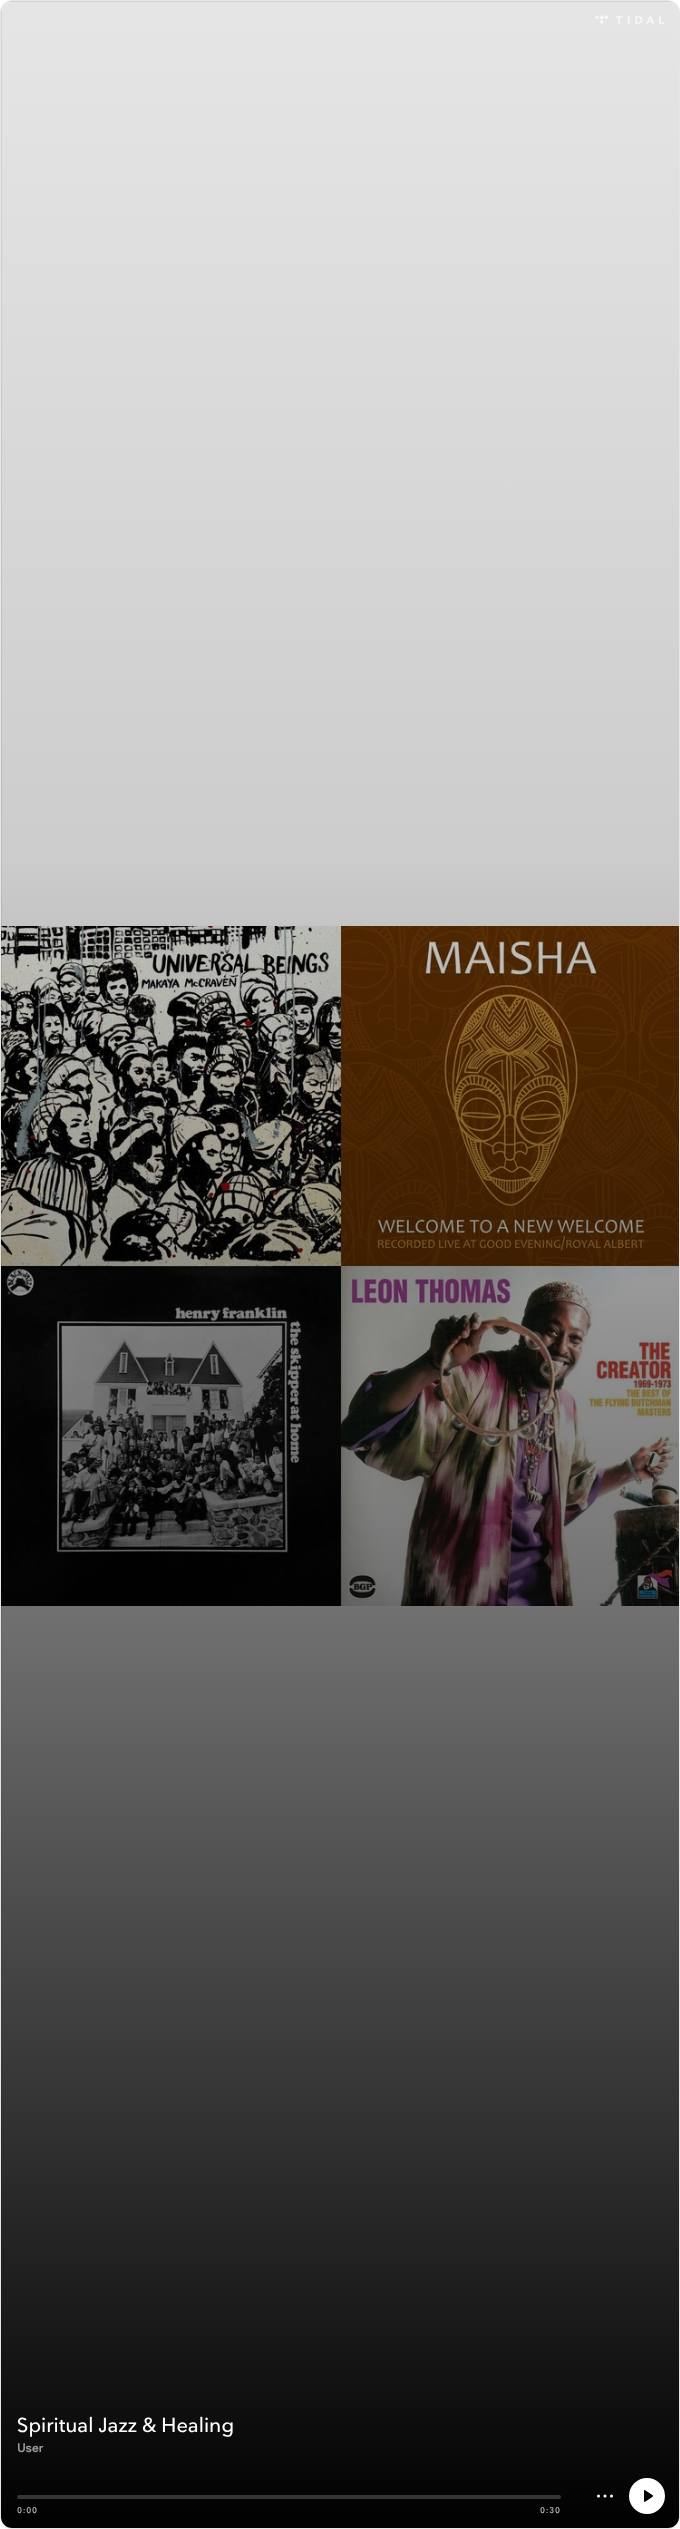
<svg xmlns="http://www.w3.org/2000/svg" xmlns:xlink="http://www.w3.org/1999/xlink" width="680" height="2529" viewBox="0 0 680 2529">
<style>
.cls-1{font:500 20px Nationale;fill:#ffffff}
.cls-2{font:bold 12px Nationale;fill:#9d9d9d}
.cls-3{font:bold 8px Nationale;letter-spacing:1px;fill:#b2b2b2}
</style>
<defs>
<linearGradient id="g1" gradientUnits="userSpaceOnUse" x1="341" y1="1" x2="341" y2="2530"><stop offset="0" stop-color="#000000" stop-opacity="0.1"/><stop offset="0.34" stop-color="#000000" stop-opacity="0.2"/><stop offset="1" stop-color="#000000"/></linearGradient>
</defs>
<rect width="100%" height="100%" fill="#ffffff"/>
<rect fill="none" stroke="#e6e6e6" x="0.5" y="0.5" width="679" height="2528" rx="11.5"/>
<rect fill="#ffffff" x="1" y="1" width="678" height="2527" rx="11"/>
<image xlink:href="image1.png" x="1" y="926" width="678" height="680"/>
<path fill="#000000" fill-opacity="0.08" fill-rule="evenodd" d="M1 12V2517L2 2522V7ZM12 1L7 2H673L668 1Z"/>
<rect fill="url(#g1)" x="1" y="1" width="678" height="2527" rx="11"/>
<image xlink:href="image0.png" x="595" y="15" width="69" height="9"/>
<image xlink:href="image2.png" x="597" y="2494" width="16" height="4"/>
<circle fill="#ffffff" cx="647" cy="2496" r="18"/>
<image xlink:href="image3.png" x="644" y="2490" width="9" height="12"/>
<rect fill="#363636" x="17" y="2495" width="544" height="4" rx="2"/>
<text class="cls-1" x="17" y="2432">Spiritual Jazz &amp; Healing</text>
<text class="cls-2" x="17" y="2452">User</text>
<text class="cls-3" x="17" y="2513">0:00</text>
<text class="cls-3" x="540" y="2513">0:30</text>
</svg>
